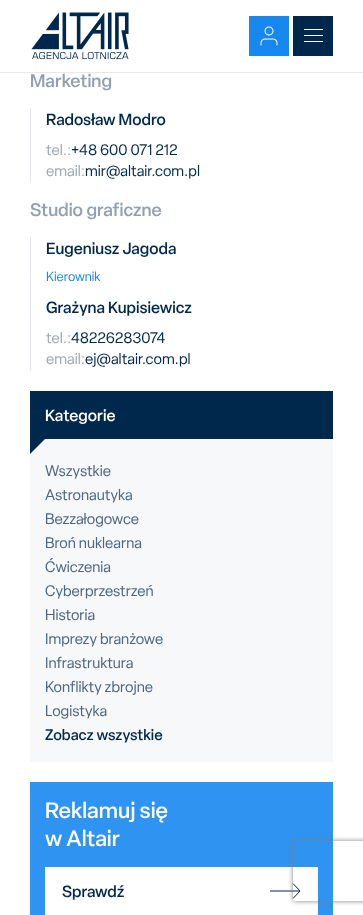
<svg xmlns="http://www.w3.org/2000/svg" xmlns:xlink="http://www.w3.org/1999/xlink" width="363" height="915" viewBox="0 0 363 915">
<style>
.cls-1{font:500 18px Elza;fill:#8fa0b0}
.cls-2{font:500 16px Elza;fill:#00274c}
.cls-3{font:15px Elza;fill:#99a9b7}
.cls-4{font:15px Elza;fill:#00274c}
.cls-5{font:13px Elza;fill:#1888f1}
.cls-6{font:500 16px Elza;fill:#ffffff}
.cls-7{font:15px Elza;fill:#4a6680}
.cls-8{font:500 15px Elza;fill:#00274c}
.cls-9{font:500 22px Elza;fill:#ffffff}
</style>
<defs>
<clipPath id="clip1"><path d="M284 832H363V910H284ZM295 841H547C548 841 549 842 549 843V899C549 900 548 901 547 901H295C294 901 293 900 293 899V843C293 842 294 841 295 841Z" clip-rule="evenodd"/></clipPath>
</defs>
<rect width="100%" height="100%" fill="#ffffff"/>
<rect fill="#e5e9ed" x="0" y="72" width="363" height="1"/>
<image xlink:href="image0.png" x="31" y="12" width="98" height="48"/>
<rect fill="#1888f1" x="249" y="16" width="40" height="40"/>
<image xlink:href="image1.png" x="260" y="26" width="18" height="20"/>
<rect fill="#00274c" x="293" y="16" width="40" height="40"/>
<rect fill="#ffffff" x="304" y="35" width="19" height="1"/>
<rect fill="#ffffff" x="304" y="29" width="19" height="1"/>
<rect fill="#ffffff" x="304" y="41" width="19" height="1"/>
<rect fill="#e5e9ed" x="30" y="108" width="1" height="74"/>
<rect fill="#e5e9ed" x="30" y="237" width="1" height="133"/>
<rect fill="#00274c" x="30" y="391" width="303" height="48"/>
<rect fill="#f6f8f9" x="30" y="439" width="303" height="323"/>
<rect fill="#2f93f2" x="30" y="782" width="303" height="133"/>
<rect fill="#ffffff" x="45" y="867" width="273" height="48"/>
<path fill="none" stroke="#00274c" d="M270 891H300M293 883.5L300 891L293 898.5"/>
<g clip-path="url(#clip1)">
<rect fill="#808080" filter="blur(2.5px)" x="293" y="841" width="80" height="60" rx="2"/>
</g>
<text class="cls-1" x="30" y="87">Marketing</text>
<text class="cls-2" x="46" y="125">Radosław Modro</text>
<text class="cls-3" x="46" y="155">tel.:</text>
<text class="cls-4" x="71" y="155">+48 600 071 212</text>
<text class="cls-3" x="46" y="176">email:</text>
<text class="cls-4" x="85" y="176">mir@altair.com.pl</text>
<text class="cls-1" x="30" y="216">Studio graficzne</text>
<text class="cls-2" x="46" y="254">Eugeniusz Jagoda</text>
<text class="cls-5" x="46" y="281">Kierownik</text>
<text class="cls-2" x="46" y="313">Grażyna Kupisiewicz</text>
<text class="cls-3" x="46" y="343">tel.:</text>
<text class="cls-4" x="71" y="343">48226283074</text>
<text class="cls-3" x="46" y="364">email:</text>
<text class="cls-4" x="85" y="364">ej@altair.com.pl</text>
<text class="cls-6" x="45" y="421">Kategorie</text>
<path fill="#00274c" d="M30 454V414L50 434Z"/>
<text class="cls-7"><tspan x="45" y="476">Wszystkie</tspan><tspan x="45" y="500">Astronautyka</tspan><tspan x="45" y="524">Bezzałogowce</tspan><tspan x="45" y="548">Broń nuklearna</tspan><tspan x="45" y="572">Ćwiczenia</tspan><tspan x="45" y="596">Cyberprzestrzeń</tspan><tspan x="45" y="620">Historia</tspan><tspan x="45" y="644">Imprezy branżowe</tspan><tspan x="45" y="668">Infrastruktura</tspan><tspan x="45" y="692">Konflikty zbrojne</tspan><tspan x="45" y="716">Logistyka</tspan></text>
<text class="cls-8" x="45" y="740">Zobacz wszystkie</text>
<text class="cls-9"><tspan x="45" y="818">Reklamuj się</tspan><tspan x="45" y="846">w Altair</tspan></text>
<text class="cls-2" x="62" y="897">Sprawdź</text>
</svg>
